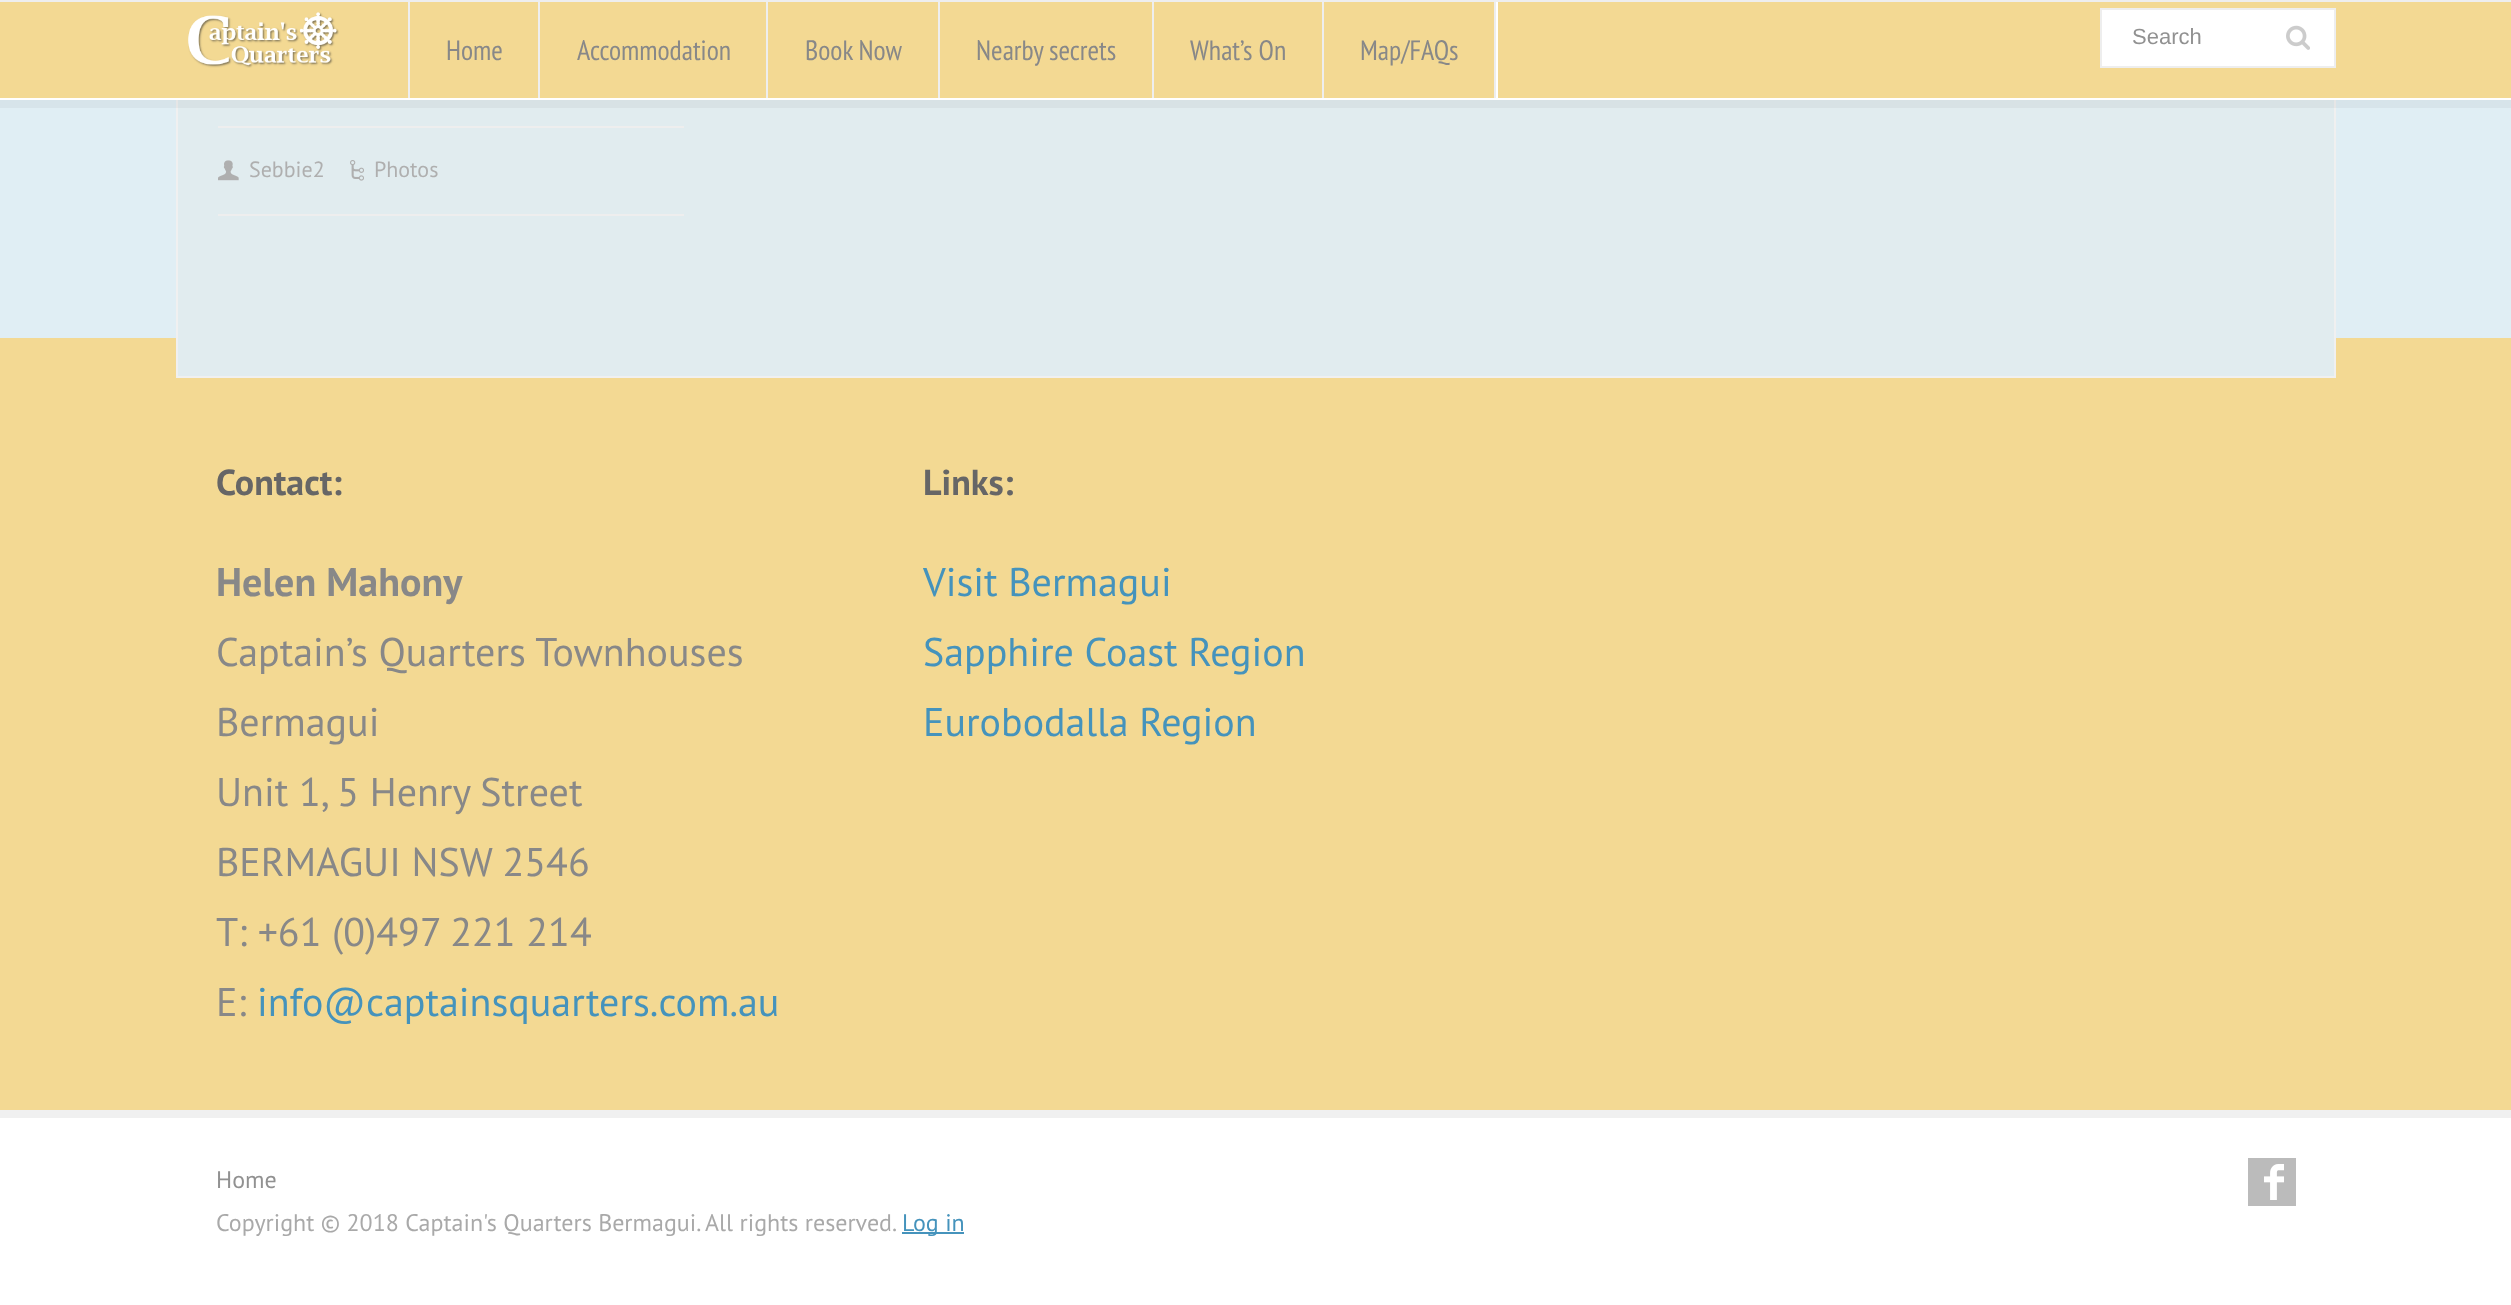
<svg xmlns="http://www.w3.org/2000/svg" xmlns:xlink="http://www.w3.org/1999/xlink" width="2511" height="1305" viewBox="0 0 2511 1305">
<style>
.cls-1{font:22px Liberation Sans;fill:#919191}
.cls-2{font:28px PT Sans Narrow;fill:#888888}
.cls-3{font:22px PT Sans;fill:#afafaf}
.cls-4{font:bold 36px PT Sans;fill:#666666}
.cls-5{font:bold 40px PT Sans;fill:#888888}
.cls-6{font:40px PT Sans;fill:#888888}
.cls-7{font:40px PT Sans;fill:#4593bc}
.cls-8{font:24px PT Sans;fill:#919191}
.cls-9{font:24px PT Sans;fill:#a9a9a9}
.cls-10{font:24px PT Sans;fill:#4593bc}
</style>
<rect width="100%" height="100%" fill="#ffffff"/>
<rect fill="#e0eef4" x="0" y="100" width="2511" height="238"/>
<rect fill="#f3d993" x="0" y="338" width="2511" height="772"/>
<rect fill="none" stroke="#f0f0f0" stroke-width="2" x="177" y="-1" width="2158" height="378"/>
<rect fill="#e1ecef" x="178" y="100" width="2156" height="276"/>
<rect fill="#000000" fill-opacity="0.04" x="0" y="100" width="2511" height="8"/>
<rect fill="#f3d993" x="0" y="2" width="2511" height="96"/>
<rect fill="#eeeeee" x="0" y="0" width="2511" height="2"/>
<rect fill="#ffffff" x="176" y="98" width="2160" height="2"/>
<image xlink:href="image0.png" x="188" y="12" width="151" height="56"/>
<rect fill="#ffffff" stroke="#eeeeee" stroke-width="2" x="2101" y="9" width="234" height="58"/>
<image xlink:href="image1.png" x="2286" y="25" width="24" height="25"/>
<rect fill="#ffffff" x="1496" y="2" width="2" height="96"/>
<rect fill="#eeeeee" x="538" y="2" width="2" height="96"/>
<rect fill="#eeeeee" x="408" y="2" width="2" height="96"/>
<rect fill="#eeeeee" x="766" y="2" width="2" height="96"/>
<rect fill="#eeeeee" x="938" y="2" width="2" height="96"/>
<rect fill="#eeeeee" x="1152" y="2" width="2" height="96"/>
<rect fill="#eeeeee" x="1322" y="2" width="2" height="96"/>
<rect fill="#eeeeee" x="1494" y="2" width="2" height="96"/>
<rect fill="#eeeeee" x="218" y="214" width="466" height="2"/>
<rect fill="#eeeeee" x="218" y="126" width="466" height="2"/>
<image xlink:href="image2.png" x="218" y="160" width="21" height="21"/>
<image xlink:href="image3.png" x="350" y="160" width="14" height="21"/>
<rect fill="#f0f0f0" x="0" y="1110" width="2511" height="8"/>
<rect fill="#4593bc" x="902" y="1232" width="62" height="2"/>
<rect fill="#bbbbbb" x="2248" y="1158" width="48" height="48"/>
<image xlink:href="image4.png" x="2264" y="1164" width="20" height="36"/>
<text class="cls-1" x="2132" y="44">Search</text>
<text class="cls-2" x="446" y="60">Home</text>
<text class="cls-2" x="577" y="60">Accommodation</text>
<text class="cls-2" x="805" y="60">Book Now</text>
<text class="cls-2" x="976" y="60">Nearby secrets</text>
<text class="cls-2" x="1190" y="60">What’s On</text>
<text class="cls-2" x="1360" y="60">Map/FAQs</text>
<text class="cls-3" x="249" y="177">Sebbie2</text>
<text class="cls-3" x="374" y="177">Photos</text>
<text class="cls-4" x="216" y="495">Contact:</text>
<text class="cls-5" x="216" y="596">Helen Mahony</text>
<text class="cls-6"><tspan x="216" y="666">Captain’s Quarters Townhouses</tspan><tspan x="216" y="736">Bermagui</tspan><tspan x="216" y="806">Unit 1, 5 Henry Street</tspan><tspan x="216" y="876">BERMAGUI NSW 2546</tspan><tspan x="216" y="946">T: +61 (0)497 221 214</tspan><tspan x="216" y="1016">E:</tspan></text>
<text class="cls-7" x="257" y="1016">info@captainsquarters.com.au</text>
<text class="cls-4" x="923" y="495">Links:</text>
<text class="cls-7"><tspan x="923" y="596">Visit Bermagui</tspan><tspan x="923" y="666">Sapphire Coast Region</tspan><tspan x="923" y="736">Eurobodalla Region</tspan></text>
<text class="cls-8" x="216" y="1188">Home</text>
<text class="cls-9" x="216" y="1231">Copyright © 2018 Captain's Quarters Bermagui. All rights reserved.</text>
<text class="cls-10" x="902" y="1231">Log in</text>
</svg>
